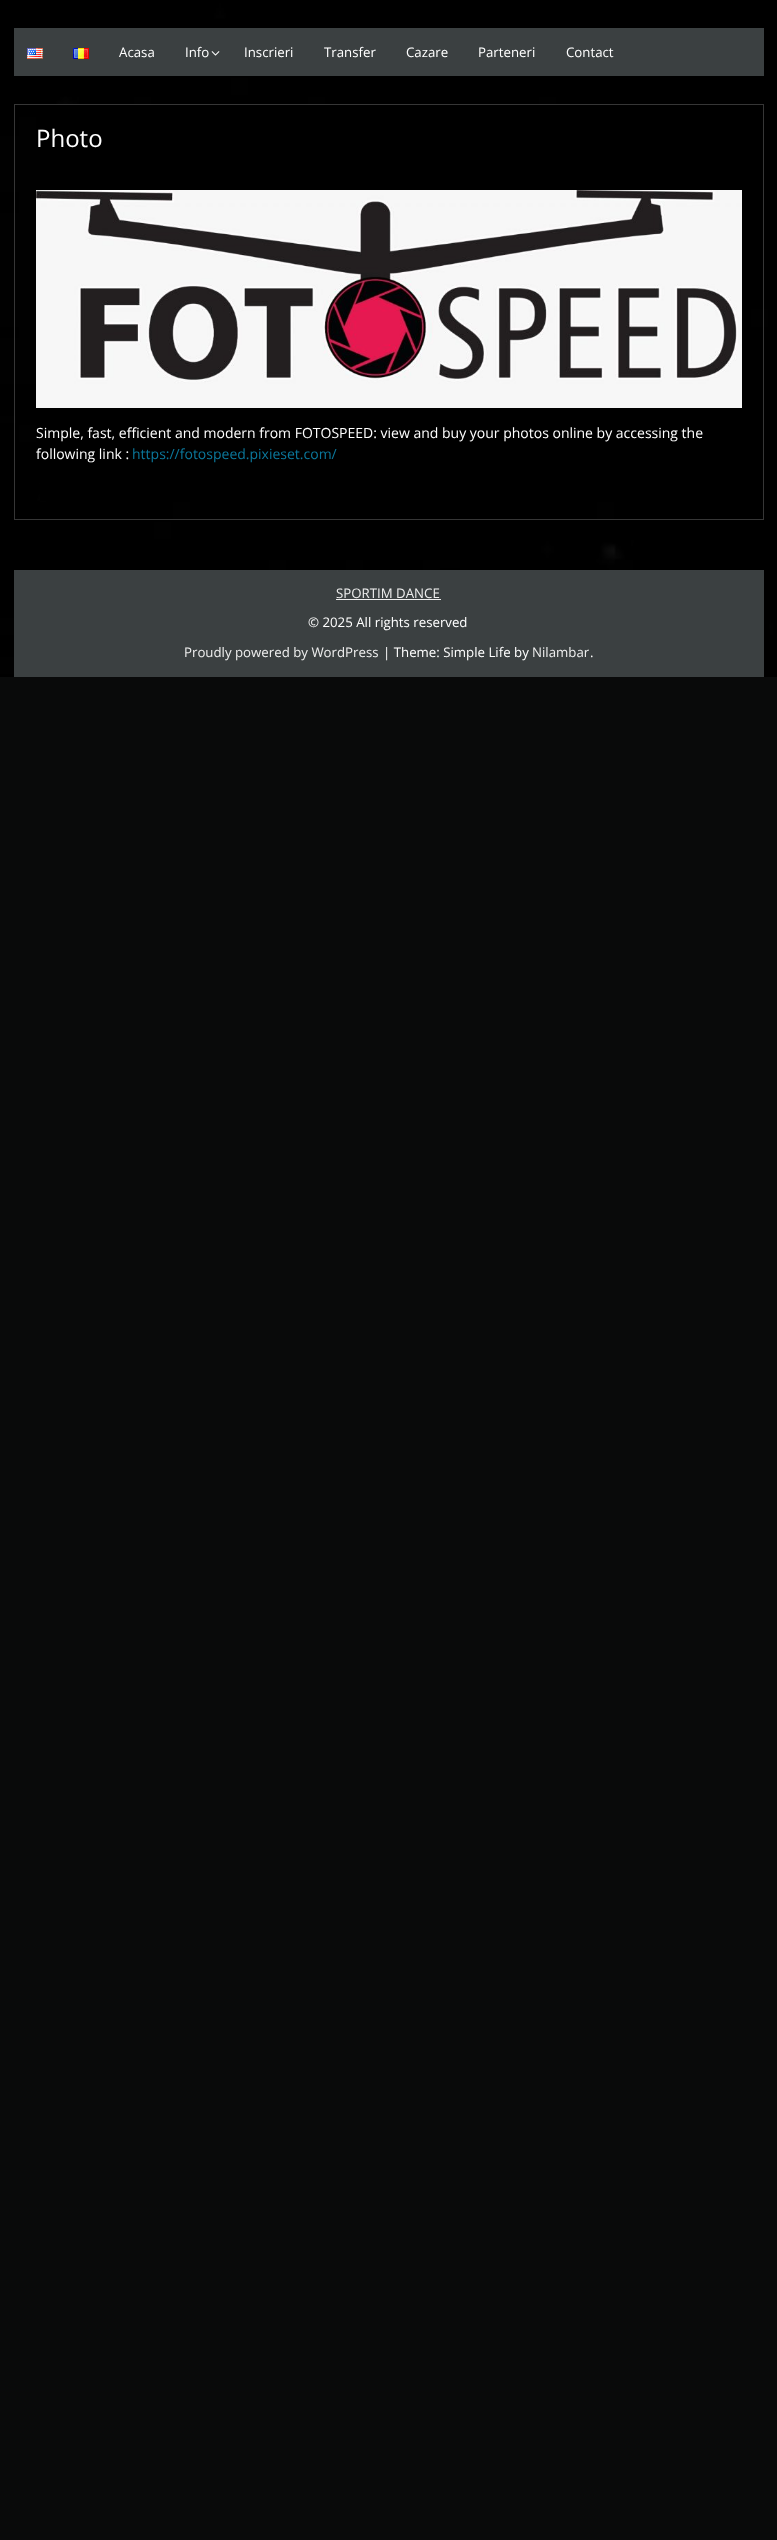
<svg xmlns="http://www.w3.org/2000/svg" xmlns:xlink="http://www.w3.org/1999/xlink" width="777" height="2540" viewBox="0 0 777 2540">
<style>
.cls-1{font:13.25px Open Sans;fill:#ffffff}
.cls-2{font:24px Open Sans;fill:#ffffff}
.cls-3{font:14px Open Sans;fill:#ffffff}
.cls-4{font:14px Open Sans;fill:#0b789c}
.cls-5{font:13.25px Open Sans;fill:#eeeeee}
</style>
<rect width="100%" height="100%" fill="#090a0a"/>
<image xlink:href="image0.png" x="0" y="0" width="777" height="677"/>
<rect fill="#3b4041" x="14" y="28" width="750" height="48"/>
<image xlink:href="image1.png" x="27" y="48" width="16" height="11"/>
<image xlink:href="image2.png" x="73" y="48" width="16" height="11"/>
<image xlink:href="image3.png" x="211" y="51" width="9" height="5"/>
<rect fill="#000000" x="40" y="105" width="675" height="396"/>
<rect fill="none" stroke="#363636" x="14.5" y="104.5" width="749" height="415"/>
<image xlink:href="image4.png" x="36" y="190" width="706" height="218"/>
<rect fill="#3b4041" x="14" y="570" width="750" height="107"/>
<rect fill="#eeeeee" x="336" y="599" width="105" height="1"/>
<text class="cls-1" x="119" y="57">Acasa</text>
<text class="cls-1" x="185" y="57">Info</text>
<text class="cls-1" x="244" y="57">Inscrieri</text>
<text class="cls-1" x="324" y="57">Transfer</text>
<text class="cls-1" x="406" y="57">Cazare</text>
<text class="cls-1" x="478" y="57">Parteneri</text>
<text class="cls-1" x="566" y="57">Contact</text>
<text class="cls-2" x="36" y="147">Photo</text>
<text class="cls-3"><tspan x="36" y="438">Simple, fast, efficient and modern from FOTOSPEED: view and buy your photos online by accessing the</tspan><tspan x="36" y="459">following link :</tspan></text>
<text class="cls-4" x="132" y="459">https://fotospeed.pixieset.com/</text>
<text class="cls-5" x="336" y="598">SPORTIM DANCE</text>
<text class="cls-1" x="308" y="627">© 2025 All rights reserved</text>
<text class="cls-5" x="184" y="657">Proudly powered by WordPress</text>
<text class="cls-1" x="383" y="657">| Theme: Simple Life by</text>
<text class="cls-5" x="532" y="657">Nilambar</text>
<text class="cls-1" x="590" y="657">.</text>
</svg>
